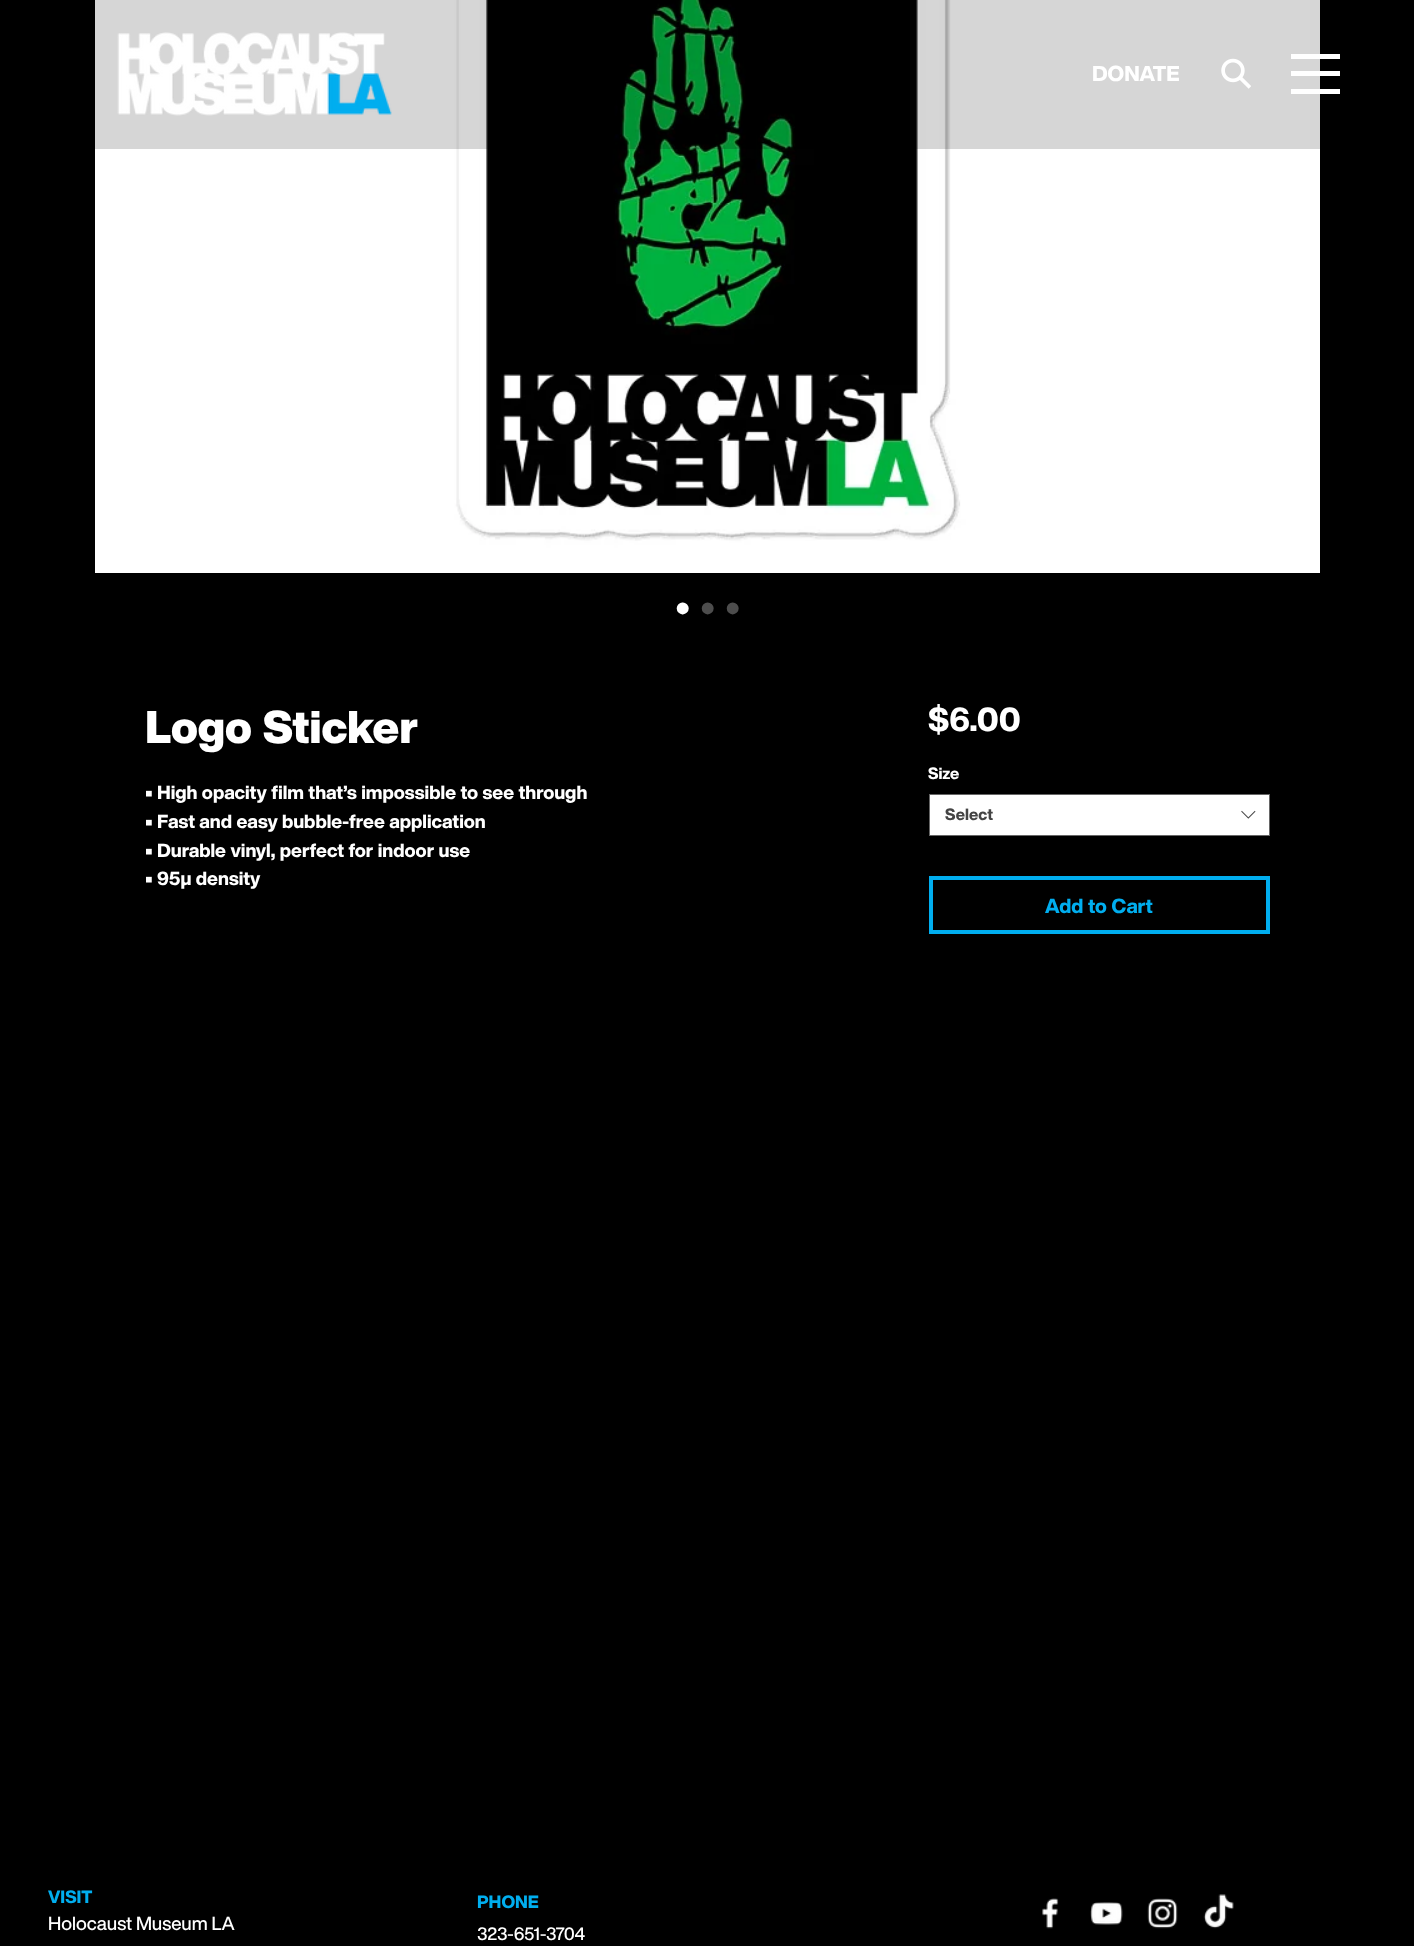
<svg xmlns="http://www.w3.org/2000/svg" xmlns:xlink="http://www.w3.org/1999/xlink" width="1414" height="1946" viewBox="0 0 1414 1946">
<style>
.cls-1{font:800 21.25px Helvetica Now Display;fill:#ffffff}
.cls-2{font:44px Liberation Sans;fill:#ffffff}
.cls-3{font:44px Liberation Sans;fill:#4d4d4d}
.cls-4{font:900 45px Helvetica Now Display;fill:#ffffff}
.cls-5{font:800 18.75px Helvetica Now Display;fill:#ffffff}
.cls-6{font:800 32.5px Helvetica Now Display;fill:#ffffff}
.cls-7{font:800 16px Helvetica Now Display;fill:#ffffff}
.cls-8{font:800 16px Helvetica Now Display;fill:#444444}
.cls-9{font:800 20px Helvetica Now Display;fill:#00aeef}
.cls-10{font:800 17.5px Helvetica Now Display;fill:#00aeef}
.cls-11{font:500 18.75px Helvetica Now Display;fill:#ffffff}
.cls-12{font:500 17.5px Helvetica Now Display;fill:#ffffff}
</style>
<rect width="100%" height="100%" fill="#000000"/>
<image xlink:href="image2.png" x="95" y="0" width="1225" height="573"/>
<rect fill="#000000" fill-opacity="0.16" x="95" y="0" width="1225" height="149"/>
<image xlink:href="image0.png" x="117" y="32" width="275" height="84"/>
<image xlink:href="image1.png" x="1221" y="58" width="30" height="31"/>
<rect fill="#ffffff" x="1291" y="89" width="49" height="5"/>
<rect fill="#ffffff" x="1291" y="54" width="49" height="5"/>
<rect fill="#ffffff" x="1291" y="71" width="49" height="5"/>
<rect fill="#ffffff" stroke="#666666" x="929.5" y="794.5" width="340" height="41"/>
<image xlink:href="image3.png" x="1241" y="810" width="15" height="9"/>
<rect fill="none" stroke="#00aeef" stroke-width="4" x="931" y="878" width="337" height="54"/>
<image xlink:href="image4.png" x="1042" y="1898" width="17" height="31"/>
<image xlink:href="image5.png" x="1090" y="1902" width="33" height="23"/>
<image xlink:href="image6.png" x="1147" y="1898" width="31" height="31"/>
<image xlink:href="image7.png" x="1203" y="1894" width="31" height="35"/>
<text class="cls-1" x="1092" y="81">DONATE</text>
<text class="cls-2" x="675" y="623">•</text>
<text class="cls-3" x="700" y="623">•</text>
<text class="cls-3" x="725" y="623">•</text>
<text class="cls-4" x="145" y="743">Logo Sticker</text>
<text class="cls-5"><tspan x="145" y="799">• High opacity film that’s impossible to see through</tspan><tspan x="145" y="828">• Fast and easy bubble-free application</tspan><tspan x="145" y="857">• Durable vinyl, perfect for indoor use</tspan><tspan x="145" y="885">• 95µ density</tspan></text>
<text class="cls-6" x="928" y="731">$6.00</text>
<text class="cls-7" x="928" y="779">Size</text>
<text class="cls-8" x="945" y="820">Select</text>
<text class="cls-9" x="1045" y="913">Add to Cart</text>
<text class="cls-10" x="48" y="1903">VISIT</text>
<text class="cls-11" x="48" y="1930">Holocaust Museum LA</text>
<text class="cls-10" x="477" y="1908">PHONE</text>
<text class="cls-12" x="477" y="1940">323-651-3704</text>
</svg>
